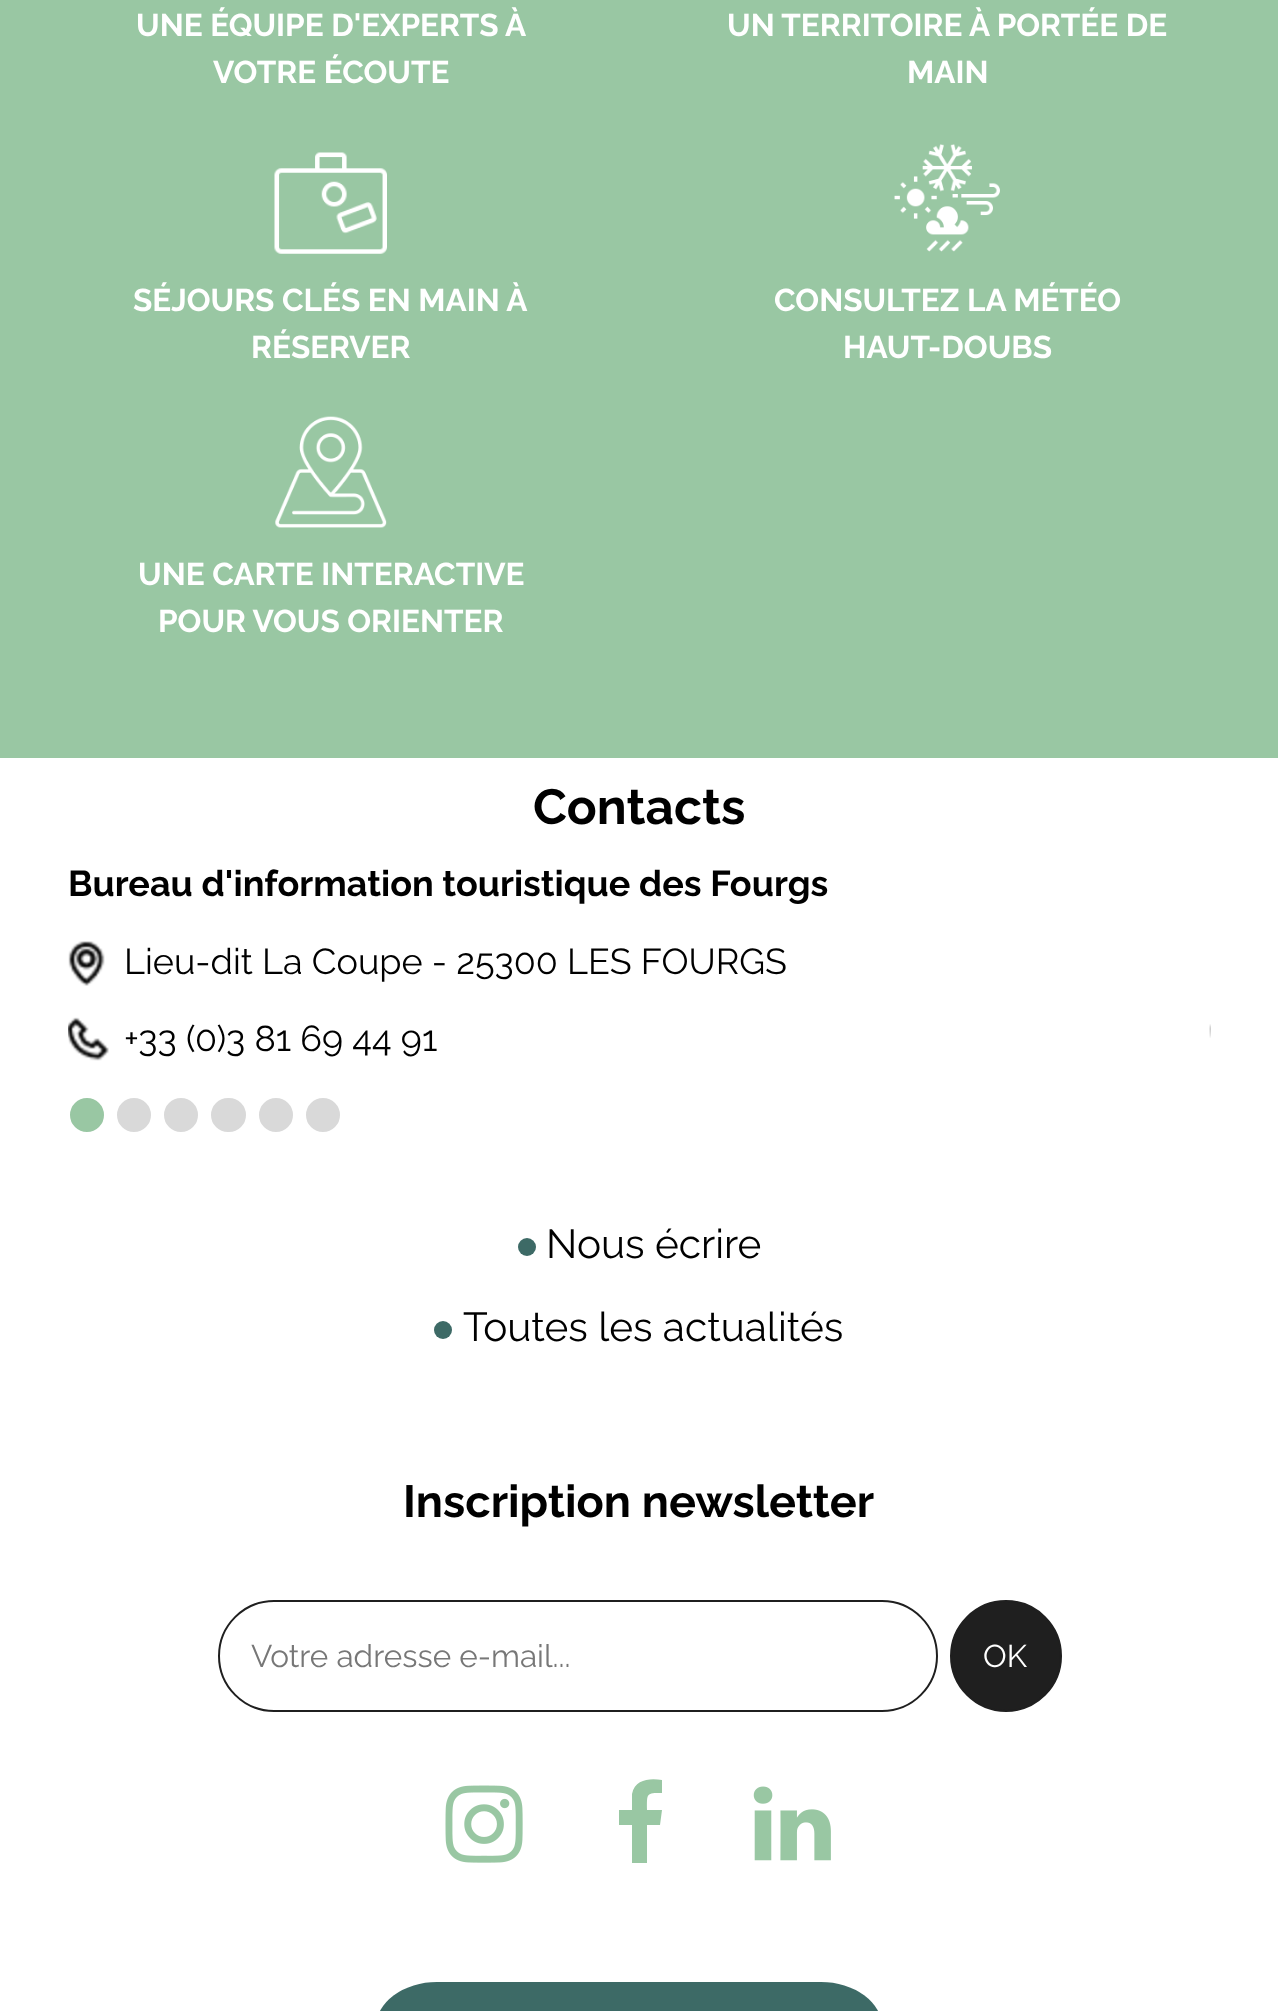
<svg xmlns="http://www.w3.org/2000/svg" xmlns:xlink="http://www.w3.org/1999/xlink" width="1278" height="2011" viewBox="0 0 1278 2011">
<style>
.cls-1{font:bold 31.5px Raleway;fill:#ffffff}
.cls-2{font:bold 49.5px Raleway;fill:#000000}
.cls-3{font:bold 36px Raleway;fill:#000000}
.cls-4{font:36px Raleway;fill:#000000}
.cls-5{font:40.5px Raleway;fill:#000000}
.cls-6{font:bold 45px Raleway;fill:#000000}
.cls-7{font:31.5px Raleway;fill:#777777}
.cls-8{font:31.5px Raleway;fill:#ffffff}
</style>
<rect width="100%" height="100%" fill="#ffffff"/>
<rect fill="#99c7a3" x="0" y="0" width="1278" height="758"/>
<image xlink:href="image0.png" x="274" y="152" width="113" height="102"/>
<image xlink:href="image1.png" x="894" y="144" width="106" height="108"/>
<image xlink:href="image2.png" x="275" y="416" width="112" height="112"/>
<image xlink:href="image3.png" x="68" y="941" width="37" height="45"/>
<image xlink:href="image4.png" x="68" y="1017" width="41" height="44"/>
<image xlink:href="image5.png" x="1209" y="1024" width="2" height="14"/>
<circle fill="#99c7a3" stroke="#ffffff" stroke-width="2" cx="87" cy="1115" r="18"/>
<circle fill="#d9d9d9" stroke="#ffffff" stroke-width="2" cx="134" cy="1115" r="18"/>
<circle fill="#d9d9d9" stroke="#ffffff" stroke-width="2" cx="181" cy="1115" r="18"/>
<rect fill="#d9d9d9" stroke="#ffffff" stroke-width="2" x="210" y="1097" width="37" height="36" rx="18"/>
<circle fill="#d9d9d9" stroke="#ffffff" stroke-width="2" cx="276" cy="1115" r="18"/>
<circle fill="#d9d9d9" stroke="#ffffff" stroke-width="2" cx="323" cy="1115" r="18"/>
<circle fill="#3d6a66" cx="527" cy="1247" r="9"/>
<circle fill="#3d6a66" cx="443" cy="1330" r="9"/>
<rect fill="none" stroke="#1f1f1f" stroke-width="2" x="219" y="1601" width="718" height="110" rx="55"/>
<circle fill="#1f1f1f" stroke="#1f1f1f" stroke-width="2" cx="1006" cy="1656" r="55"/>
<image xlink:href="image6.png" x="445" y="1785" width="78" height="78"/>
<path fill="#99c7a3" d="M662 1780V1793C646 1793 647 1793 647 1810H662L660 1825H647V1863H632V1825H619V1810H632V1794C635 1779 650 1778 662 1780Z"/>
<image xlink:href="image7.png" x="753" y="1786" width="78" height="75"/>
<rect fill="#3d6a66" x="376" y="1982" width="506" height="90" rx="61"/>
<text class="cls-1" x="136" y="36">UNE ÉQUIPE D'EXPERTS À</text>
<text class="cls-1" x="213" y="83">VOTRE ÉCOUTE</text>
<text class="cls-1" x="727" y="36">UN TERRITOIRE À PORTÉE DE</text>
<text class="cls-1" x="907" y="83">MAIN</text>
<text class="cls-1" x="133" y="311">SÉJOURS CLÉS EN MAIN À</text>
<text class="cls-1" x="251" y="358">RÉSERVER</text>
<text class="cls-1" x="774" y="311">CONSULTEZ LA MÉTÉO</text>
<text class="cls-1" x="843" y="358">HAUT-DOUBS</text>
<text class="cls-1" x="138" y="585">UNE CARTE INTERACTIVE</text>
<text class="cls-1" x="158" y="632">POUR VOUS ORIENTER</text>
<text class="cls-2" x="533" y="824">Contacts</text>
<text class="cls-3" x="68" y="896">Bureau d'information touristique des Fourgs</text>
<text class="cls-4" x="124" y="974">Lieu-dit La Coupe - 25300 LES FOURGS</text>
<text class="cls-4" x="124" y="1051">+33 (0)3 81 69 44 91</text>
<text class="cls-5" x="546" y="1258">Nous écrire</text>
<text class="cls-5" x="463" y="1341">Toutes les actualités</text>
<text class="cls-6" x="403" y="1517">Inscription newsletter</text>
<text class="cls-7" x="251" y="1667">Votre adresse e-mail...</text>
<text class="cls-8" x="983" y="1667">OK</text>
</svg>
